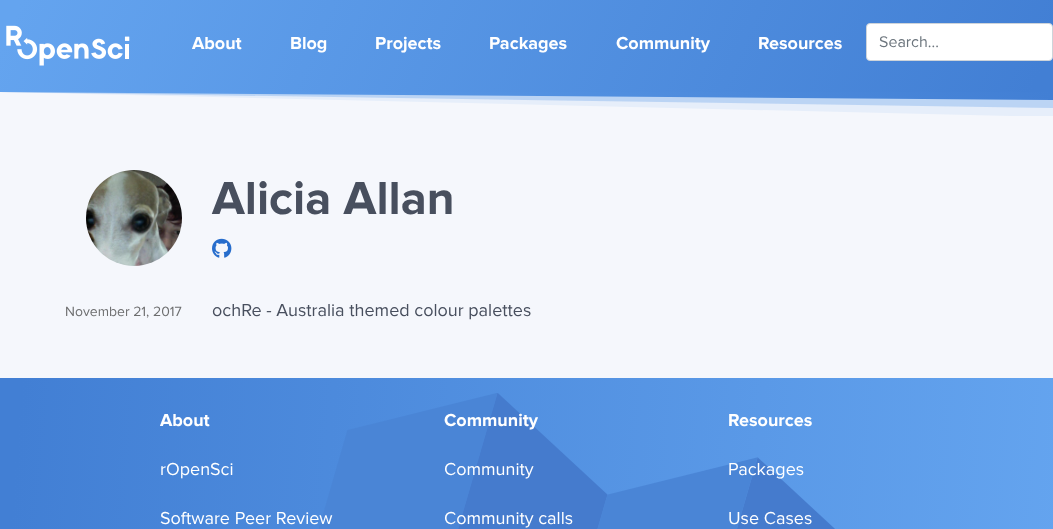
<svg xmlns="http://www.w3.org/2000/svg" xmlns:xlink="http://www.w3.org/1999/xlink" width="1053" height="529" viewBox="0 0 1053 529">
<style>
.cls-1{font:bold 18px Proxima Nova;fill:#ffffff}
.cls-2{font:16px Proxima Nova;fill:#6c757d}
.cls-3{font:bold 48px Proxima Nova;fill:#484f5e}
.cls-4{font:14px Proxima Nova;fill:#6d6e6f}
.cls-5{font:18px Proxima Nova;fill:#484f5e}
.cls-6{font:18px Proxima Nova;fill:#ffffff}
</style>
<defs>
<linearGradient id="g1" gradientUnits="userSpaceOnUse" x1="69" y1="-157" x2="984" y2="249"><stop offset="0.02" stop-color="#64a4ef"/><stop offset="0.98" stop-color="#427fd4"/></linearGradient>
<clipPath id="clip1"><rect x="0" y="92" width="1053" height="24"/></clipPath>
<linearGradient id="g2" gradientUnits="userSpaceOnUse" x1="1053" y1="96" x2="0.2" y2="96"><stop offset="0" stop-color="#427fd4"/><stop offset="1" stop-color="#64a4ef"/></linearGradient>
<linearGradient id="g3" gradientUnits="userSpaceOnUse" x1="-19" y1="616" x2="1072" y2="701"><stop offset="0.02" stop-color="#427fd4"/><stop offset="0.98" stop-color="#64a4ef"/></linearGradient>
</defs>
<rect width="100%" height="100%" fill="#f5f7fc"/>
<rect fill="url(#g1)" x="0" y="0" width="1053" height="92"/>
<image xlink:href="image0.png" x="6" y="25" width="124" height="41"/>
<rect fill="#ffffff" stroke="#ced4da" x="866.5" y="23.5" width="186" height="37" rx="3.5"/>
<g clip-path="url(#clip1)">
<path fill="#e6eefa" d="M1053 92H0L1053 117Z"/>
</g>
<path fill="#5a99e7" fill-opacity="0.3" d="M1053 92H0L1053 108Z"/>
<path fill="url(#g2)" d="M1053 92H0L1053 100Z"/>
<image xlink:href="image1.png" x="86" y="170" width="96" height="96"/>
<image xlink:href="image2.png" x="212" y="238" width="20" height="20"/>
<rect fill="url(#g3)" x="0" y="378" width="1053" height="151"/>
<image xlink:href="image3.png" x="319" y="393" width="516" height="136"/>
<text class="cls-1" x="192" y="49">About</text>
<text class="cls-1" x="290" y="49">Blog</text>
<text class="cls-1" x="375" y="49">Projects</text>
<text class="cls-1" x="489" y="49">Packages</text>
<text class="cls-1" x="616" y="49">Community</text>
<text class="cls-1" x="758" y="49">Resources</text>
<text class="cls-2" x="879" y="47">Search...</text>
<text class="cls-3" x="212" y="214">Alicia Allan</text>
<text class="cls-4" x="65" y="316">November 21, 2017</text>
<text class="cls-5" x="212" y="316">ochRe - Australia themed colour palettes</text>
<text class="cls-1" x="160" y="426">About</text>
<text class="cls-6" x="160" y="475">rOpenSci</text>
<text class="cls-6" x="160" y="524">Software Peer Review</text>
<text class="cls-1" x="444" y="426">Community</text>
<text class="cls-6" x="444" y="475">Community</text>
<text class="cls-6" x="444" y="524">Community calls</text>
<text class="cls-1" x="728" y="426">Resources</text>
<text class="cls-6" x="728" y="475">Packages</text>
<text class="cls-6" x="728" y="524">Use Cases</text>
</svg>
